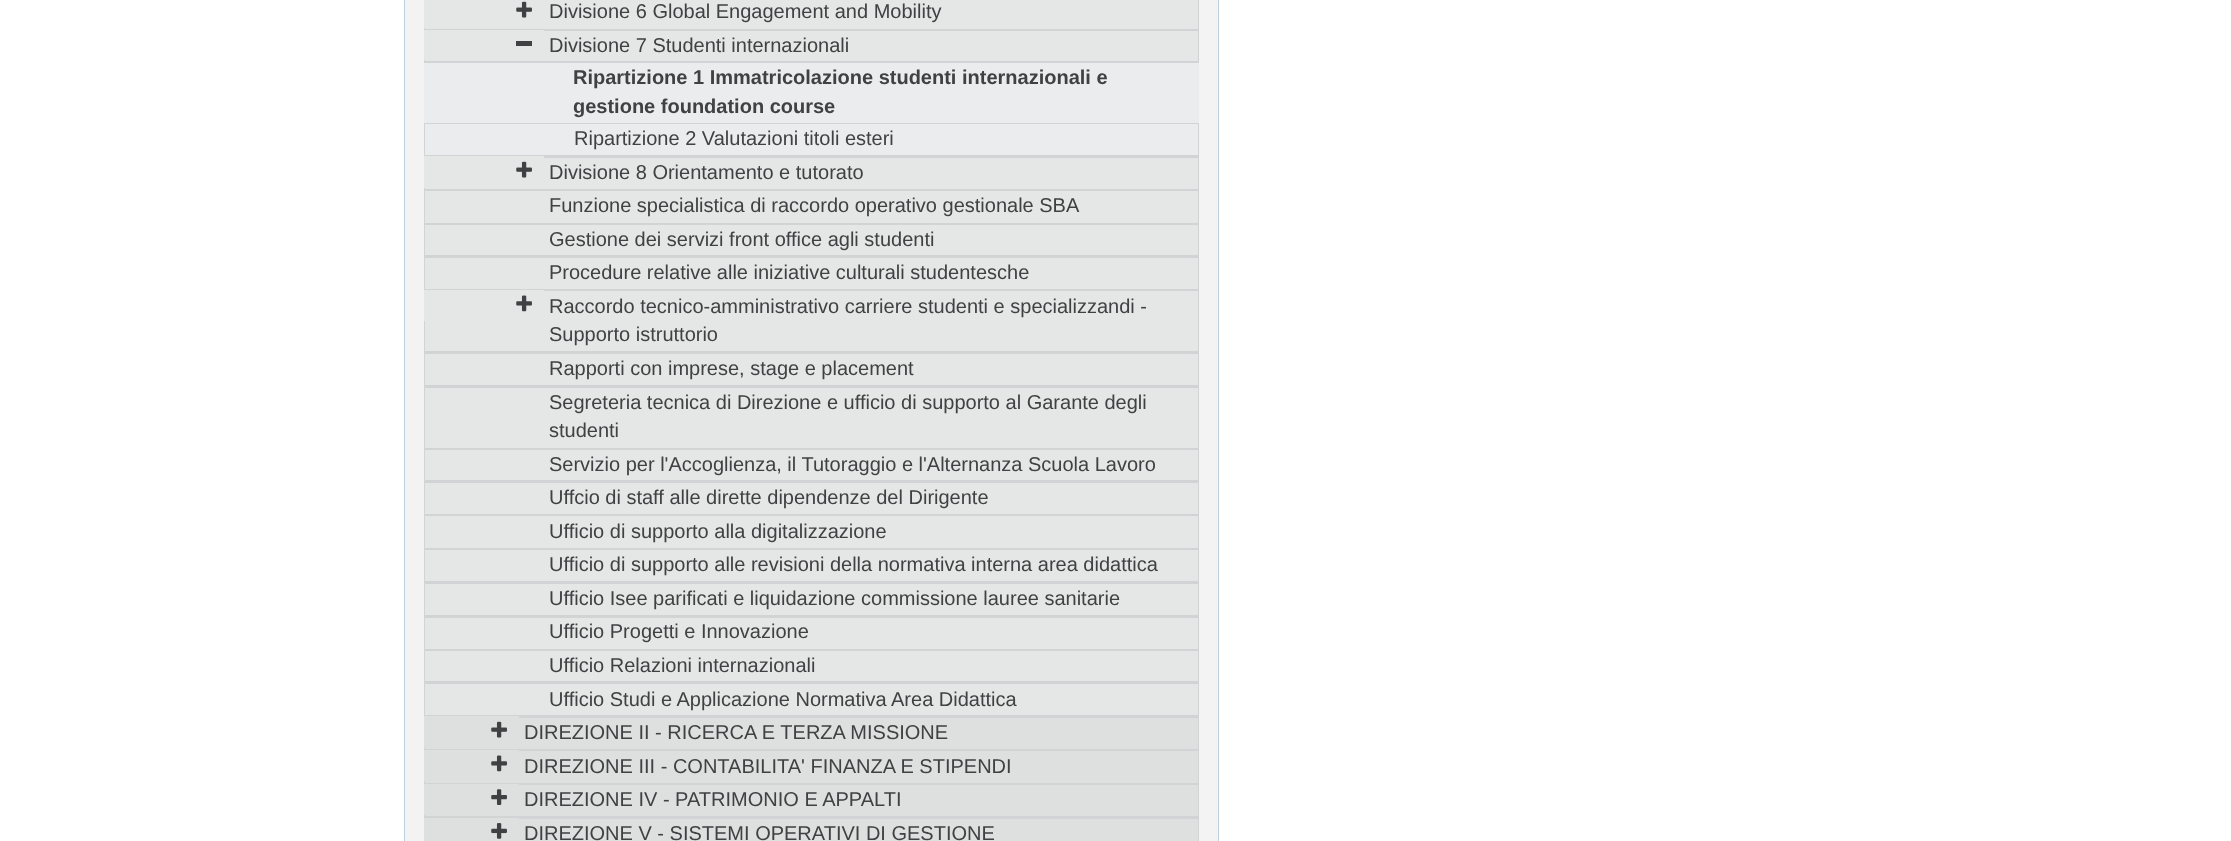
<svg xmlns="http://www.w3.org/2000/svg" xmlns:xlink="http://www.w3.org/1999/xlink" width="2231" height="841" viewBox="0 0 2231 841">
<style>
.cls-1{font:20px Liberation Sans;fill:#414042}
.cls-2{font:bold 20px Liberation Sans;fill:#414042}
</style>
<rect width="100%" height="100%" fill="#ffffff"/>
<rect fill="#f3f3f3" stroke="#bcd2e3" x="404.5" y="-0.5" width="814" height="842"/>
<rect fill="#d1d3d4" x="424" y="0" width="775" height="63"/>
<rect fill="#e5e6e6" x="424" y="0" width="1" height="28"/>
<rect fill="#e5e6e6" x="425" y="0" width="773" height="29"/>
<image xlink:href="image0.png" x="516" y="1" width="16" height="17"/>
<rect fill="#e5e6e6" x="425" y="31" width="773" height="30"/>
<rect fill="#e5e6e6" x="424" y="30" width="120" height="30"/>
<rect fill="#414042" x="516" y="41" width="16" height="5"/>
<rect fill="#ebeced" x="424" y="63" width="775" height="60"/>
<rect fill="#d1d3d4" x="424" y="123" width="775" height="695"/>
<rect fill="#ebeced" x="425" y="124" width="773" height="31"/>
<rect fill="#e5e6e6" x="425" y="158" width="773" height="31"/>
<rect fill="#e5e6e6" x="424" y="156" width="120" height="32"/>
<image xlink:href="image0.png" x="516" y="161" width="16" height="17"/>
<rect fill="#e5e6e6" x="425" y="191" width="773" height="32"/>
<rect fill="#e5e6e6" x="425" y="225" width="773" height="30"/>
<rect fill="#e5e6e6" x="425" y="258" width="773" height="31"/>
<rect fill="#e5e6e6" x="425" y="291" width="773" height="60"/>
<rect fill="#e5e6e6" x="424" y="290" width="120" height="31"/>
<image xlink:href="image1.png" x="516" y="295" width="16" height="17"/>
<rect fill="#e5e6e6" x="425" y="354" width="773" height="31"/>
<rect fill="#e5e6e6" x="425" y="388" width="773" height="60"/>
<rect fill="#e5e6e6" x="425" y="450" width="773" height="30"/>
<rect fill="#e5e6e6" x="425" y="483" width="773" height="31"/>
<rect fill="#e5e6e6" x="425" y="516" width="773" height="32"/>
<rect fill="#e5e6e6" x="425" y="550" width="773" height="31"/>
<rect fill="#e5e6e6" x="425" y="584" width="773" height="31"/>
<rect fill="#e5e6e6" x="425" y="618" width="773" height="31"/>
<rect fill="#e5e6e6" x="425" y="651" width="773" height="30"/>
<rect fill="#e5e6e6" x="425" y="684" width="773" height="31"/>
<rect fill="#dee0e0" x="425" y="718" width="773" height="31"/>
<rect fill="#dee0e0" x="424" y="716" width="95" height="32"/>
<image xlink:href="image2.png" x="491" y="721" width="16" height="17"/>
<rect fill="#dee0e0" x="425" y="751" width="773" height="32"/>
<rect fill="#dee0e0" x="424" y="750" width="95" height="31"/>
<image xlink:href="image3.png" x="491" y="755" width="16" height="17"/>
<rect fill="#dee0e0" x="425" y="785" width="773" height="31"/>
<rect fill="#dee0e0" x="424" y="784" width="95" height="31"/>
<image xlink:href="image4.png" x="491" y="789" width="16" height="16"/>
<rect fill="#dee0e0" x="424" y="818" width="95" height="23"/>
<image xlink:href="image5.png" x="491" y="823" width="16" height="16"/>
<rect fill="#d1d3d4" x="519" y="818" width="680" height="23"/>
<rect fill="#dee0e0" x="519" y="819" width="679" height="22"/>
<text class="cls-1"><tspan x="549" y="18">Divisione 6 Global Engagement and Mobility</tspan><tspan x="549" y="52">Divisione 7 Studenti internazionali</tspan></text>
<text class="cls-2"><tspan x="573" y="84">Ripartizione 1 Immatricolazione studenti internazionali e</tspan><tspan x="573" y="113">gestione foundation course</tspan></text>
<text class="cls-1" x="574" y="145">Ripartizione 2 Valutazioni titoli esteri</text>
<text class="cls-1"><tspan x="549" y="179">Divisione 8 Orientamento e tutorato</tspan><tspan x="549" y="212">Funzione specialistica di raccordo operativo gestionale SBA</tspan><tspan x="549" y="246">Gestione dei servizi front office agli studenti</tspan><tspan x="549" y="279">Procedure relative alle iniziative culturali studentesche</tspan><tspan x="549" y="313">Raccordo tecnico-amministrativo carriere studenti e specializzandi -</tspan><tspan x="549" y="341">Supporto istruttorio</tspan><tspan x="549" y="375">Rapporti con imprese, stage e placement</tspan><tspan x="549" y="409">Segreteria tecnica di Direzione e ufficio di supporto al Garante degli</tspan><tspan x="549" y="437">studenti</tspan><tspan x="549" y="471">Servizio per l'Accoglienza, il Tutoraggio e l'Alternanza Scuola Lavoro</tspan><tspan x="549" y="504">Uffcio di staff alle dirette dipendenze del Dirigente</tspan><tspan x="549" y="538">Ufficio di supporto alla digitalizzazione</tspan><tspan x="549" y="571">Ufficio di supporto alle revisioni della normativa interna area didattica</tspan><tspan x="549" y="605">Ufficio Isee parificati e liquidazione commissione lauree sanitarie</tspan><tspan x="549" y="638">Ufficio Progetti e Innovazione</tspan><tspan x="549" y="672">Ufficio Relazioni internazionali</tspan><tspan x="549" y="706">Ufficio Studi e Applicazione Normativa Area Didattica</tspan></text>
<text class="cls-1"><tspan x="524" y="739">DIREZIONE II - RICERCA E TERZA MISSIONE</tspan><tspan x="524" y="773">DIREZIONE III - CONTABILITA' FINANZA E STIPENDI</tspan><tspan x="524" y="806">DIREZIONE IV - PATRIMONIO E APPALTI</tspan><tspan x="524" y="840">DIREZIONE V - SISTEMI OPERATIVI DI GESTIONE</tspan></text>
</svg>
